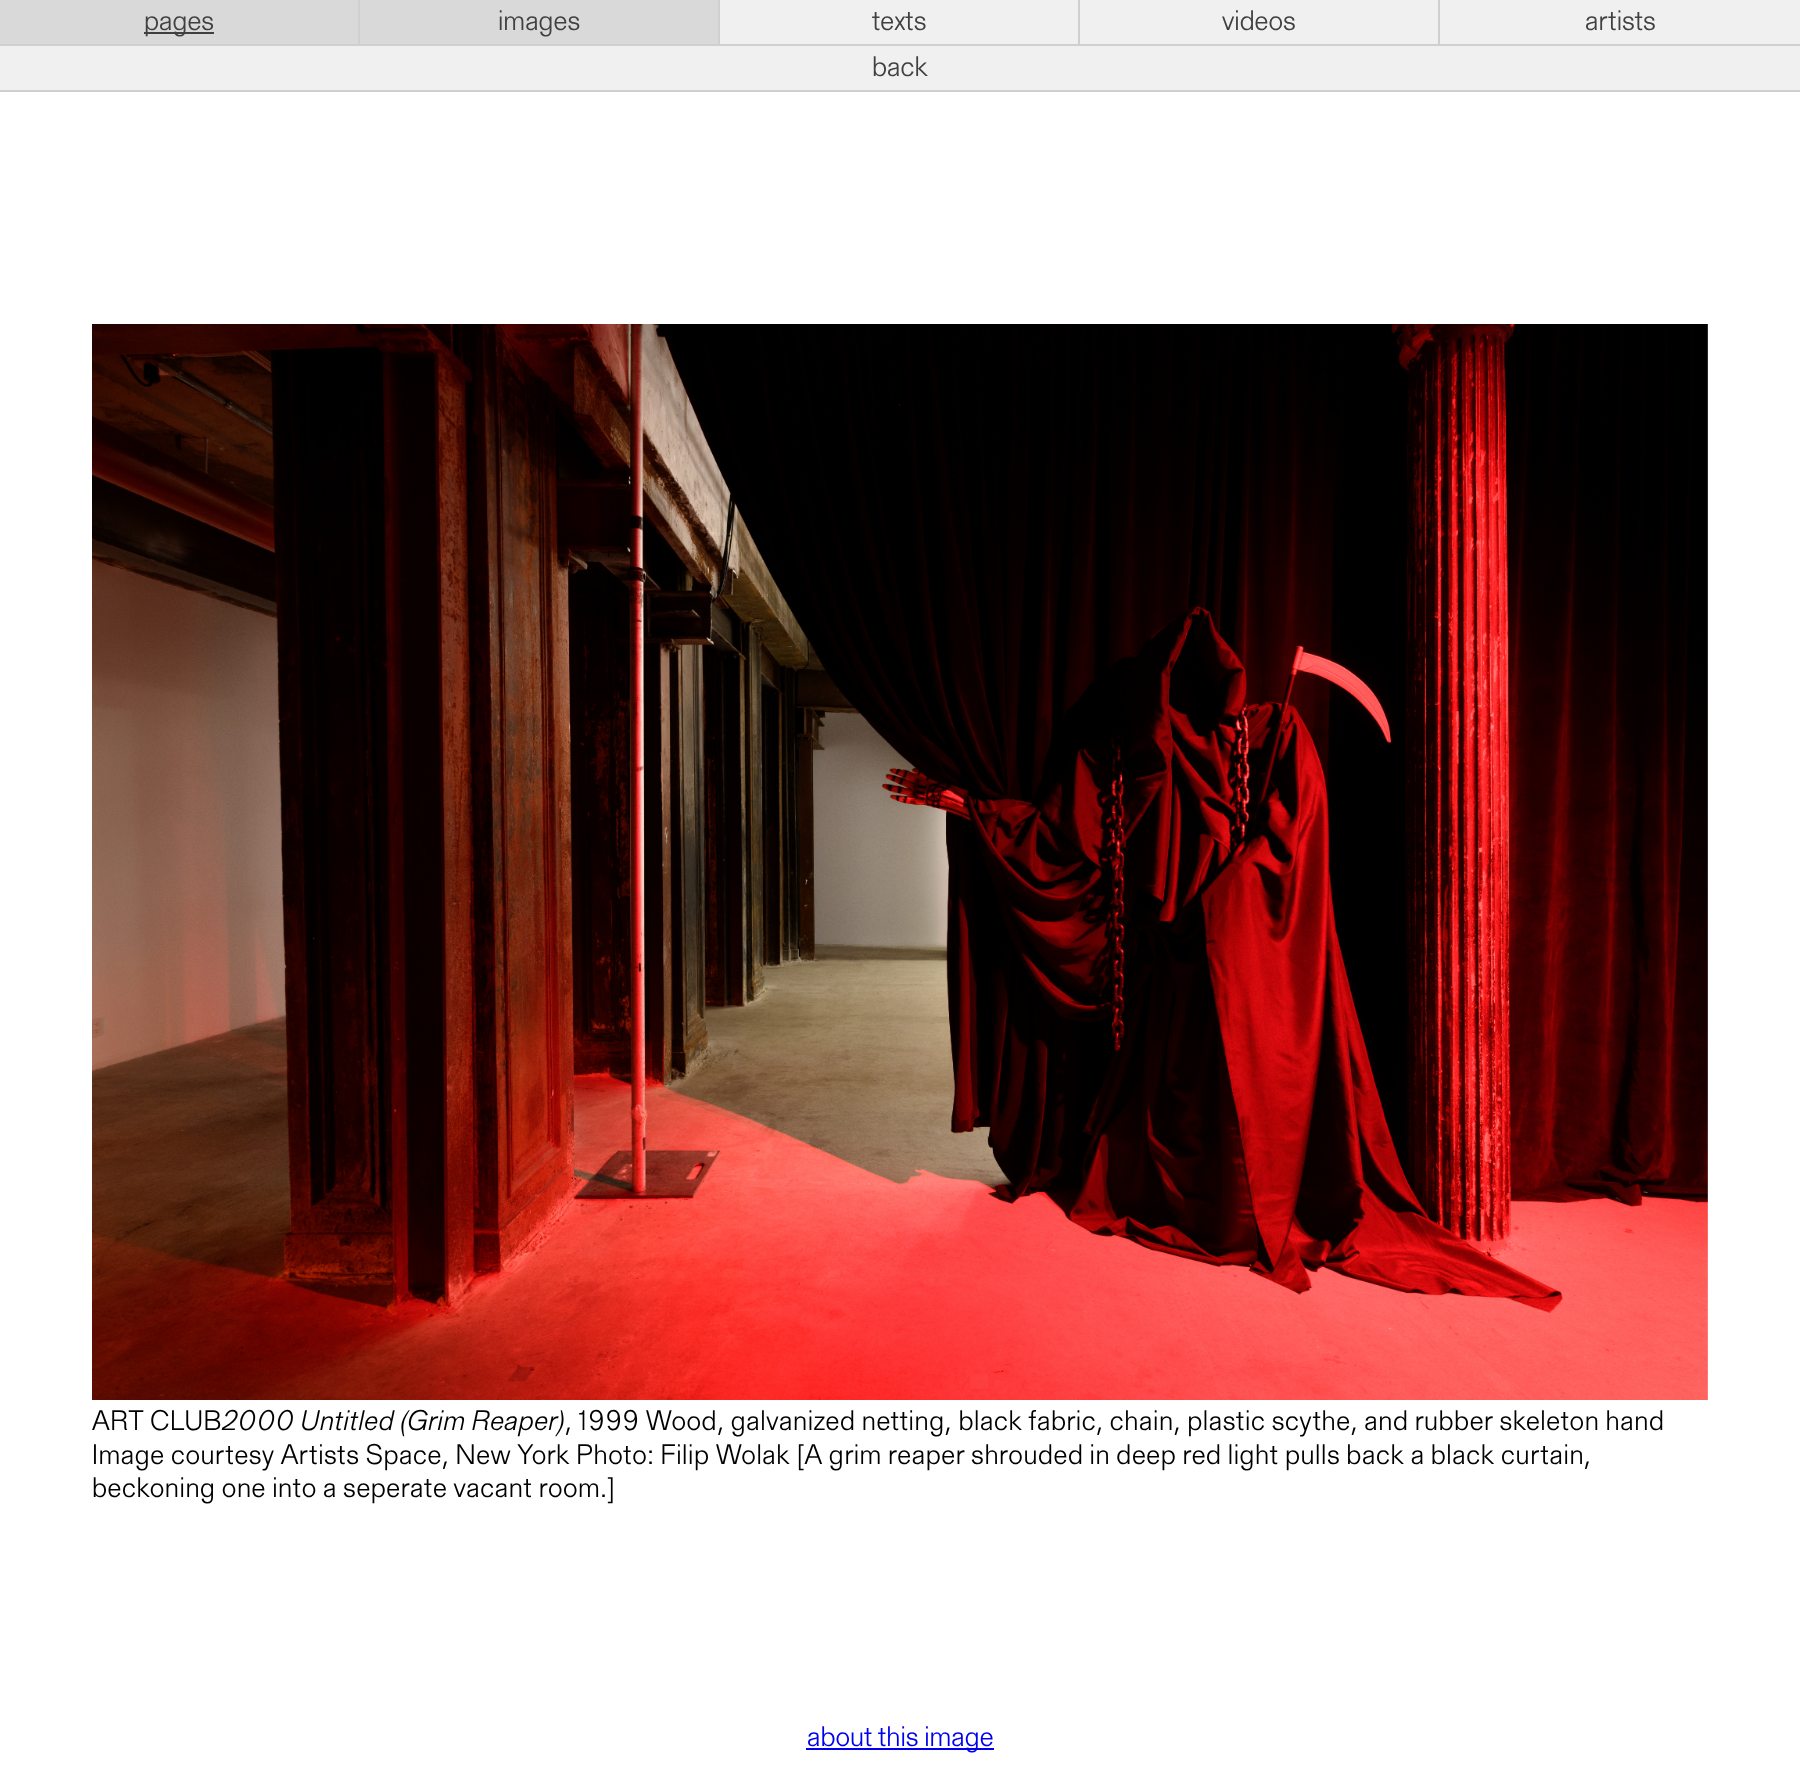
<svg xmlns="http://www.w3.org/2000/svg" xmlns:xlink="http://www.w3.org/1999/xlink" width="1800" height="1783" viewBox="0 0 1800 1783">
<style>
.cls-1{font:300 28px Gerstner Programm;fill:#404040}
.cls-2{font:300 28px Gerstner Programm;letter-spacing:0.56px;fill:#000000}
.cls-3{font:italic 300 28px Gerstner Programm;letter-spacing:0.56px;fill:#000000}
.cls-4{font:300 28px Gerstner Programm;fill:#0000ee}
</style>
<rect width="100%" height="100%" fill="#ffffff"/>
<rect fill="#f0f0f0" x="0" y="0" width="1800" height="90"/>
<rect fill="#d9d9d9" x="0" y="0" width="358" height="44"/>
<rect fill="#cfcfcf" x="358" y="0" width="2" height="46"/>
<rect fill="#cfcfcf" x="0" y="44" width="360" height="2"/>
<rect fill="#404040" x="144" y="32" width="70" height="2"/>
<rect fill="#d9d9d9" x="360" y="0" width="358" height="44"/>
<rect fill="#cfcfcf" x="718" y="0" width="2" height="46"/>
<rect fill="#cfcfcf" x="360" y="44" width="360" height="2"/>
<rect fill="#cfcfcf" x="1078" y="0" width="2" height="46"/>
<rect fill="#cfcfcf" x="720" y="44" width="360" height="2"/>
<rect fill="#cfcfcf" x="1438" y="0" width="2" height="46"/>
<rect fill="#cfcfcf" x="1080" y="44" width="720" height="2"/>
<rect fill="#cfcfcf" x="0" y="90" width="1800" height="2"/>
<image xlink:href="image0.png" x="92" y="324" width="1616" height="1076"/>
<rect fill="#0000ee" x="806" y="1748" width="188" height="2"/>
<text class="cls-1" x="144" y="30">pages</text>
<text class="cls-1" x="498" y="30">images</text>
<text class="cls-1" x="872" y="30">texts</text>
<text class="cls-1" x="1222" y="30">videos</text>
<text class="cls-1" x="1585" y="30">artists</text>
<text class="cls-1" x="872" y="76">back</text>
<text class="cls-2" x="92" y="1430">ART CLUB</text>
<text class="cls-3" x="222" y="1430">2000 Untitled (Grim Reaper)</text>
<text class="cls-2" x="565" y="1430">, 1999 Wood, galvanized netting, black fabric, chain, plastic scythe, and rubber skeleton hand</text>
<text class="cls-2"><tspan x="92" y="1464">Image courtesy Artists Space, New York Photo: Filip Wolak [A grim reaper shrouded in deep red light pulls back a black curtain,</tspan><tspan x="92" y="1497">beckoning one into a seperate vacant room.]</tspan></text>
<text class="cls-4" x="807" y="1746">about this image</text>
</svg>
